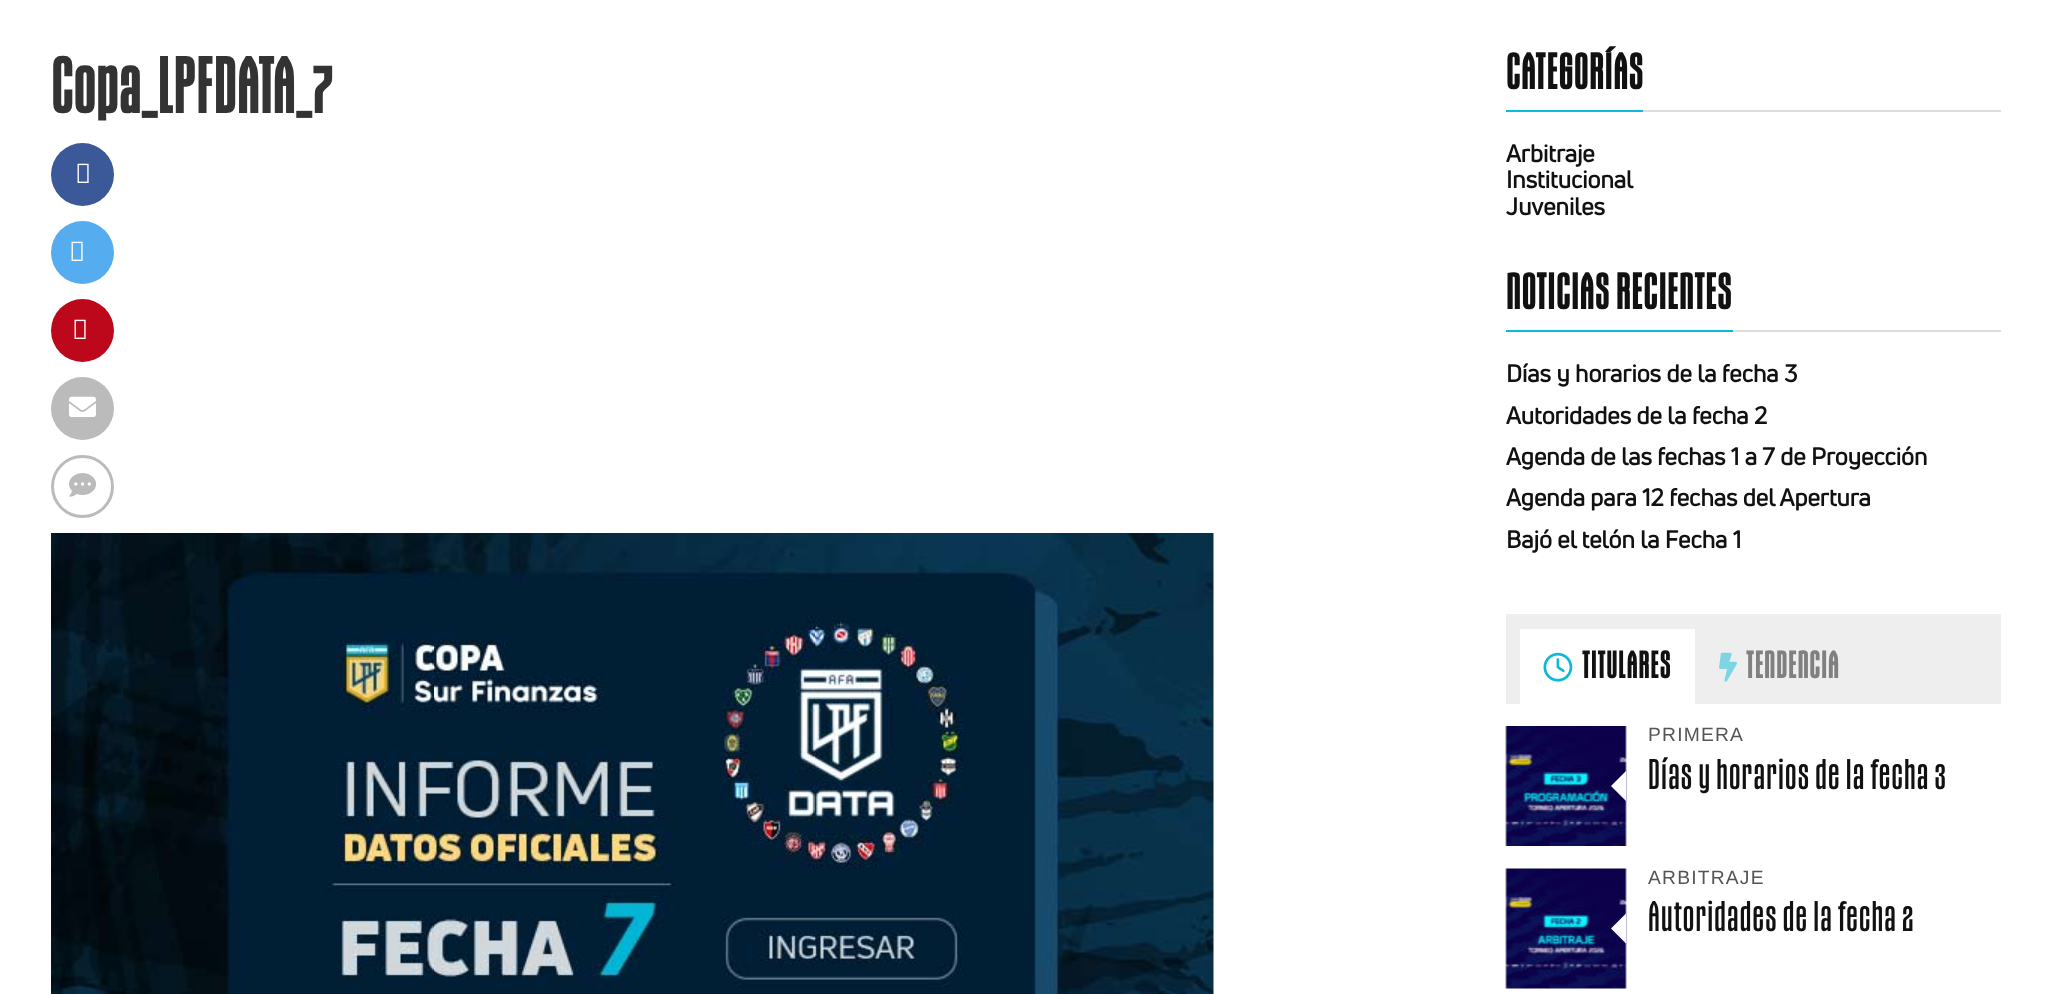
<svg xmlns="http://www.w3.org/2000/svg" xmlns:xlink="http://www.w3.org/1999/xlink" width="2051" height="994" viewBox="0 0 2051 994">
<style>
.cls-1{font:bold 74.5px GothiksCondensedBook;letter-spacing:1.5px;fill:#333333}
.cls-2{font:bold 48px GothiksCondensedBook;letter-spacing:1.5px;fill:#111111}
.cls-3{font:bold 24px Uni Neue;fill:#111111}
.cls-4{font:bold 36px GothiksCondensedBook;letter-spacing:1.5px;fill:#111111}
.cls-5{font:bold 36px GothiksCondensedBook;letter-spacing:1.5px;fill:#808080}
.cls-6{font:19.25px Liberation Sans;letter-spacing:1.2px;fill:#555555}
.cls-7{font:40.75px GothiksCondensedBook;letter-spacing:1.2px;fill:#111111}
</style>
<rect width="100%" height="100%" fill="#ffffff"/>
<circle fill="#3b5998" cx="82.5" cy="174.5" r="31.5"/>
<image xlink:href="image0.png" x="77" y="163" width="12" height="20"/>
<circle fill="#55acee" cx="82.5" cy="252.5" r="31.5"/>
<image xlink:href="image1.png" x="71" y="241" width="12" height="20"/>
<circle fill="#bd081c" cx="82.5" cy="330.5" r="31.5"/>
<image xlink:href="image2.png" x="74" y="319" width="12" height="20"/>
<circle fill="#bbbbbb" cx="82.5" cy="408.5" r="31.5"/>
<image xlink:href="image3.png" x="69" y="396" width="27" height="21"/>
<circle fill="none" stroke="#bbbbbb" stroke-width="3" cx="82.5" cy="486.5" r="30"/>
<image xlink:href="image4.png" x="69" y="473" width="27" height="24"/>
<image xlink:href="image5.png" x="51" y="533" width="1163" height="461"/>
<rect fill="#dddddd" x="1643" y="110" width="358" height="2"/>
<rect fill="#0bbad9" x="1506" y="110" width="137" height="2"/>
<rect fill="#dddddd" x="1733" y="330" width="268" height="2"/>
<rect fill="#0bbad9" x="1506" y="330" width="227" height="2"/>
<rect fill="#eeeeee" x="1506" y="614" width="495" height="90"/>
<rect fill="#ffffff" x="1520" y="629" width="175" height="75"/>
<image xlink:href="image6.png" x="1543" y="652" width="30" height="30"/>
<image xlink:href="image7.png" x="1719" y="652" width="18" height="30"/>
<image xlink:href="image8.png" x="1505" y="726" width="122" height="120"/>
<path fill="#ffffff" d="M1626 771V801L1611 786Z"/>
<image xlink:href="image9.png" x="1505" y="868" width="122" height="121"/>
<path fill="#ffffff" d="M1626 913.5V943.5L1611 928.5Z"/>
<text class="cls-1" x="51" y="113">Copa_LPFDATA_7</text>
<text class="cls-2" x="1506" y="89">CATEGORÍAS</text>
<text class="cls-3"><tspan x="1506" y="162">Arbitraje</tspan><tspan x="1506" y="188">Institucional</tspan><tspan x="1506" y="215">Juveniles</tspan></text>
<text class="cls-2" x="1506" y="309">NOTICIAS RECIENTES</text>
<text class="cls-3"><tspan x="1506" y="382">Días y horarios de la fecha 3</tspan><tspan x="1506" y="424">Autoridades de la fecha 2</tspan><tspan x="1506" y="465">Agenda de las fechas 1 a 7 de Proyección</tspan><tspan x="1506" y="506">Agenda para 12 fechas del Apertura</tspan><tspan x="1506" y="548">Bajó el telón la Fecha 1</tspan></text>
<text class="cls-4" x="1582" y="678">TITULARES</text>
<text class="cls-5" x="1746" y="678">TENDENCIA</text>
<text class="cls-6" x="1648" y="741">PRIMERA</text>
<text class="cls-7" x="1648" y="789">Días y horarios de la fecha 3</text>
<text class="cls-6" x="1648" y="884">ARBITRAJE</text>
<text class="cls-7" x="1648" y="931">Autoridades de la fecha 2</text>
</svg>
